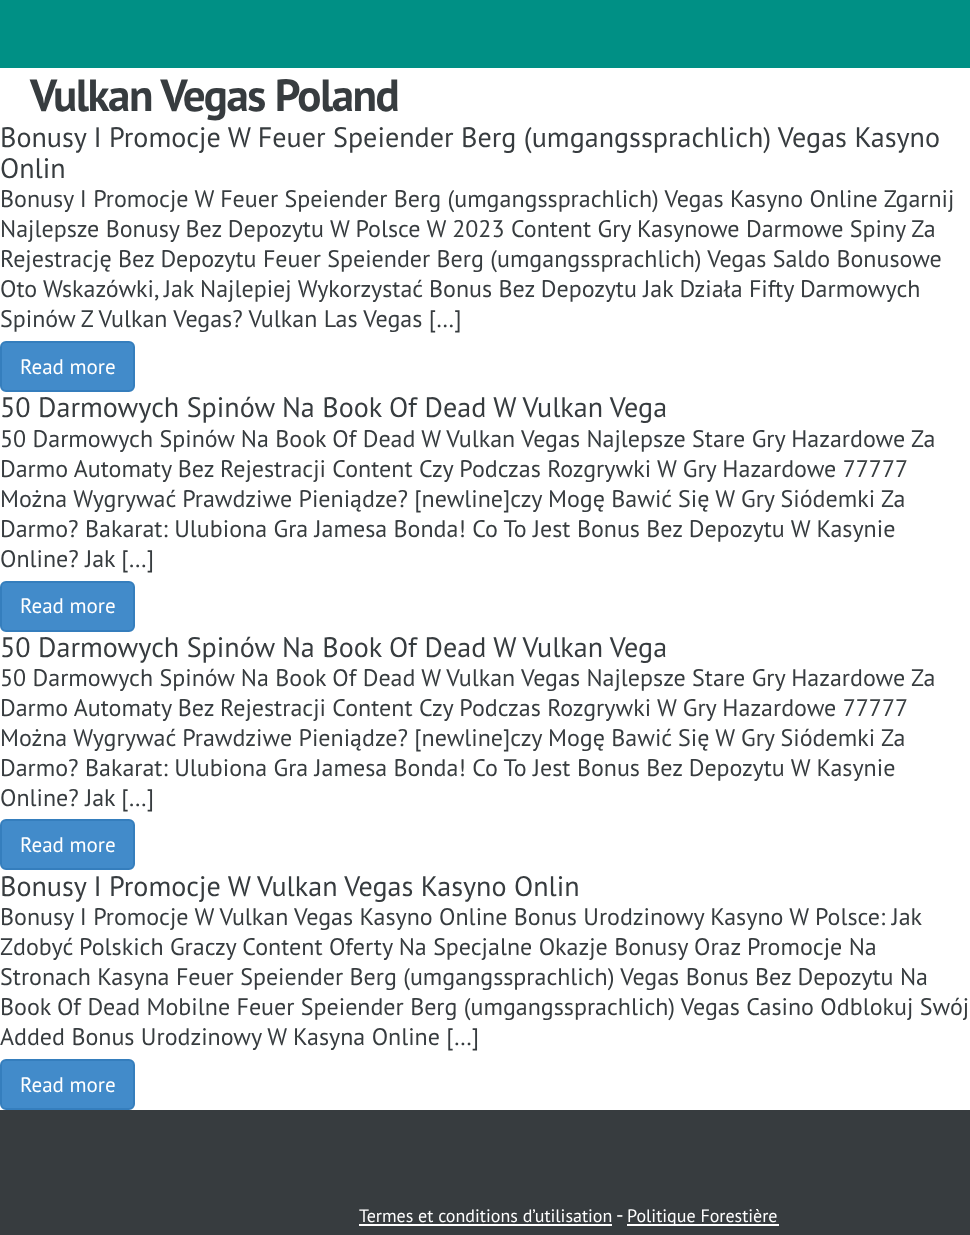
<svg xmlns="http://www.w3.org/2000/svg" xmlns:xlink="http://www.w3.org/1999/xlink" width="970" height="1235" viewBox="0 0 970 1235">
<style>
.cls-1{font:bold 45px PT Sans;letter-spacing:-1.5px;fill:#373c3f}
.cls-2{font:28.1px PT Sans;fill:#373c3f}
.cls-3{font:24px PT Sans;fill:#373c3f}
.cls-4{font:21px PT Sans;fill:#ffffff}
.cls-5{font:18px PT Sans;fill:#ffffff}
</style>
<rect width="100%" height="100%" fill="#ffffff"/>
<rect fill="#009085" x="0" y="0" width="970" height="68"/>
<rect fill="#428bca" stroke="#357ebd" stroke-width="2" x="1" y="342" width="133" height="49" rx="5"/>
<rect fill="#428bca" stroke="#357ebd" stroke-width="2" x="1" y="582" width="133" height="49" rx="5"/>
<rect fill="#428bca" stroke="#357ebd" stroke-width="2" x="1" y="820" width="133" height="49" rx="5"/>
<rect fill="#428bca" stroke="#357ebd" stroke-width="2" x="1" y="1060" width="133" height="49" rx="5"/>
<rect fill="#373c3f" x="0" y="1110" width="970" height="125"/>
<rect fill="#ffffff" x="359" y="1224" width="253" height="2"/>
<rect fill="#ffffff" x="627" y="1224" width="152" height="2"/>
<text class="cls-1" x="30" y="111">Vulkan Vegas Poland</text>
<text class="cls-2"><tspan x="0" y="147">Bonusy I Promocje W Feuer Speiender Berg (umgangssprachlich) Vegas Kasyno</tspan><tspan x="0" y="178">Onlin</tspan></text>
<text class="cls-3"><tspan x="0" y="207">Bonusy I Promocje W Feuer Speiender Berg (umgangssprachlich) Vegas Kasyno Online Zgarnij</tspan><tspan x="0" y="237">Najlepsze Bonusy Bez Depozytu W Polsce W 2023 Content Gry Kasynowe Darmowe Spiny Za</tspan><tspan x="0" y="267">Rejestrację Bez Depozytu Feuer Speiender Berg (umgangssprachlich) Vegas Saldo Bonusowe</tspan><tspan x="0" y="297">Oto Wskazówki, Jak Najlepiej Wykorzystać Bonus Bez Depozytu Jak Działa Fifty Darmowych</tspan><tspan x="0" y="327">Spinów Z Vulkan Vegas? Vulkan Las Vegas […]</tspan></text>
<text class="cls-4" x="20" y="374">Read more</text>
<text class="cls-2" x="0" y="417">50 Darmowych Spinów Na Book Of Dead W Vulkan Vega</text>
<text class="cls-3"><tspan x="0" y="447">50 Darmowych Spinów Na Book Of Dead W Vulkan Vegas Najlepsze Stare Gry Hazardowe Za</tspan><tspan x="0" y="477">Darmo Automaty Bez Rejestracji Content Czy Podczas Rozgrywki W Gry Hazardowe 77777</tspan><tspan x="0" y="507">Można Wygrywać Prawdziwe Pieniądze? [newline]czy Mogę Bawić Się W Gry Siódemki Za</tspan><tspan x="0" y="537">Darmo? Bakarat: Ulubiona Gra Jamesa Bonda! Co To Jest Bonus Bez Depozytu W Kasynie</tspan><tspan x="0" y="567">Online? Jak […]</tspan></text>
<text class="cls-4" x="20" y="613">Read more</text>
<text class="cls-2" x="0" y="657">50 Darmowych Spinów Na Book Of Dead W Vulkan Vega</text>
<text class="cls-3"><tspan x="0" y="686">50 Darmowych Spinów Na Book Of Dead W Vulkan Vegas Najlepsze Stare Gry Hazardowe Za</tspan><tspan x="0" y="716">Darmo Automaty Bez Rejestracji Content Czy Podczas Rozgrywki W Gry Hazardowe 77777</tspan><tspan x="0" y="746">Można Wygrywać Prawdziwe Pieniądze? [newline]czy Mogę Bawić Się W Gry Siódemki Za</tspan><tspan x="0" y="776">Darmo? Bakarat: Ulubiona Gra Jamesa Bonda! Co To Jest Bonus Bez Depozytu W Kasynie</tspan><tspan x="0" y="806">Online? Jak […]</tspan></text>
<text class="cls-4" x="20" y="852">Read more</text>
<text class="cls-2" x="0" y="896">Bonusy I Promocje W Vulkan Vegas Kasyno Onlin</text>
<text class="cls-3"><tspan x="0" y="925">Bonusy I Promocje W Vulkan Vegas Kasyno Online Bonus Urodzinowy Kasyno W Polsce: Jak</tspan><tspan x="0" y="955">Zdobyć Polskich Graczy Content Oferty Na Specjalne Okazje Bonusy Oraz Promocje Na</tspan><tspan x="0" y="985">Stronach Kasyna Feuer Speiender Berg (umgangssprachlich) Vegas Bonus Bez Depozytu Na</tspan><tspan x="0" y="1015">Book Of Dead Mobilne Feuer Speiender Berg (umgangssprachlich) Vegas Casino Odblokuj Swój</tspan><tspan x="0" y="1045">Added Bonus Urodzinowy W Kasyna Online […]</tspan></text>
<text class="cls-4" x="20" y="1092">Read more</text>
<text class="cls-5" x="359" y="1222">Termes et conditions d’utilisation</text>
<text class="cls-4" x="616" y="1222">-</text>
<text class="cls-5" x="627" y="1222">Politique Forestière</text>
</svg>
